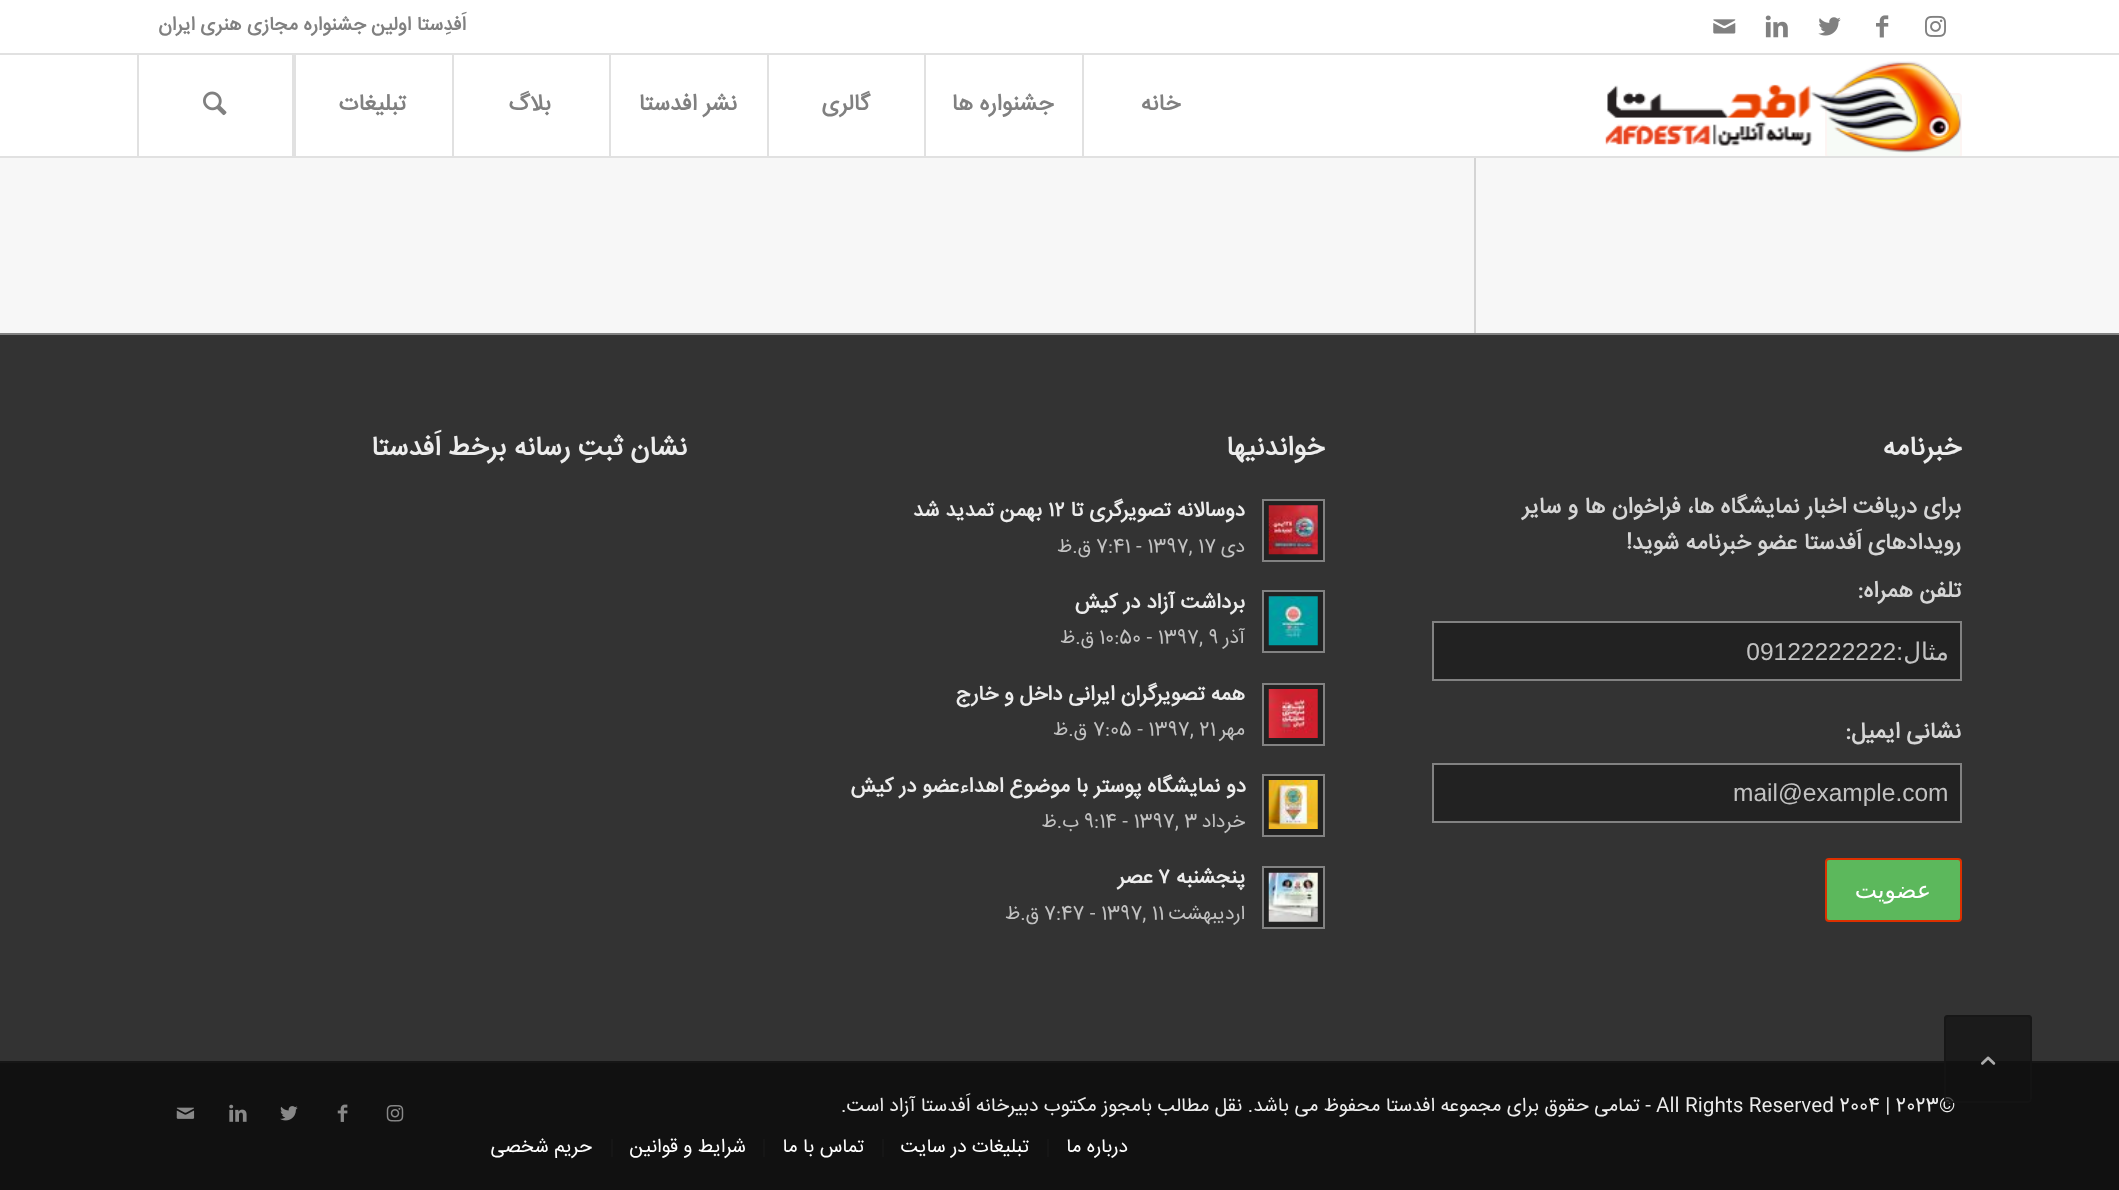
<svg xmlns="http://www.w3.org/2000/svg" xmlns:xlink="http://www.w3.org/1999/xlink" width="2119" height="1190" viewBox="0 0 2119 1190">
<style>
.cls-1{font:bold 19.25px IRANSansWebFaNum;direction:rtl;fill:#808080}
.cls-2{font:bold 22.75px IRANSansWebFaNum;direction:rtl;fill:#808080}
.cls-3{font:bold 27px IRANSansWebFaNum;direction:rtl;fill:#ededed}
.cls-4{font:bold 22.5px IRANSansWebFaNum;direction:rtl;fill:#d6d6d6}
.cls-5{font:24.5px DejaVu Sans;direction:rtl;fill:#c2c2c2}
.cls-6{font:24.5px Liberation Sans;direction:rtl;fill:#c2c2c2}
.cls-7{font:24.5px Liberation Sans;fill:#c2c2c2}
.cls-8{font:23.5px DejaVu Sans;direction:rtl;fill:#ffffff}
.cls-9{font:bold 20.8px IRANSansWebFaNum;direction:rtl;fill:#ededed}
.cls-10{font:bold 20.8px IRANSansWebFaNum;fill:#ededed}
.cls-11{font:19.25px IRANSansWebFaNum;direction:rtl;fill:#c2c2c2}
.cls-12{font:19.25px IRANSansWebFaNum;fill:#c2c2c2}
.cls-13{font:19.25px IRANSansWebFaNum;fill:#ededed}
.cls-14{font:19.25px IRANSansWebFaNum;direction:rtl;fill:#ededed}
.cls-15{font:19.25px IRANSansWebFaNum;direction:rtl;fill:#ffffff}
</style>
<rect width="100%" height="100%" fill="#f7f7f7"/>
<rect fill="#ffffff" x="0" y="0" width="2119" height="156"/>
<image xlink:href="image1.png" x="1925" y="15" width="21" height="22"/>
<image xlink:href="image2.png" x="1876" y="15" width="13" height="23"/>
<image xlink:href="image3.png" x="1818" y="17" width="23" height="19"/>
<image xlink:href="image4.png" x="1765" y="15" width="23" height="23"/>
<image xlink:href="image5.png" x="1713" y="19" width="23" height="15"/>
<rect fill="#e1e1e1" x="0" y="53" width="2119" height="2"/>
<rect fill="#fdfdfd" x="1474" y="156" width="2" height="2"/>
<rect fill="#f7fbf7" stroke="#fdf5f3" stroke-width="2" x="1826" y="94" width="135" height="63" rx="3"/>
<rect fill="#e1e1e1" x="0" y="156" width="2119" height="2"/>
<image xlink:href="image6.png" x="1605" y="61" width="356" height="92"/>
<rect fill="#e1e1e1" x="1082" y="54" width="2" height="102"/>
<rect fill="#e1e1e1" x="924" y="54" width="2" height="102"/>
<rect fill="#e1e1e1" x="767" y="54" width="2" height="102"/>
<rect fill="#e1e1e1" x="609" y="54" width="2" height="102"/>
<rect fill="#e1e1e1" x="452" y="54" width="2" height="102"/>
<rect fill="#e1e1e1" x="292" y="54" width="4" height="102"/>
<rect fill="#e1e1e1" x="137" y="54" width="2" height="102"/>
<image xlink:href="image7.png" x="203" y="91" width="24" height="25"/>
<rect fill="#d4d4d4" x="1474" y="158" width="2" height="175"/>
<rect fill="#333333" x="0" y="335" width="2119" height="726"/>
<rect fill="#828282" x="0" y="333" width="2119" height="2"/>
<rect fill="#222222" stroke="#828282" stroke-width="2" x="1433" y="622" width="528" height="58"/>
<rect fill="#222222" stroke="#828282" stroke-width="2" x="1433" y="764" width="528" height="58"/>
<rect fill="#5cb85c" stroke="#dd3000" stroke-width="2" x="1826" y="859" width="135" height="62" rx="3"/>
<rect fill="#222222" stroke="#828282" stroke-width="2" x="1263" y="500" width="61" height="61"/>
<image xlink:href="image8.png" x="1268" y="505" width="50" height="50"/>
<rect fill="#222222" stroke="#828282" stroke-width="2" x="1263" y="591" width="61" height="61"/>
<image xlink:href="image9.png" x="1268" y="596" width="50" height="50"/>
<rect fill="#222222" stroke="#828282" stroke-width="2" x="1263" y="684" width="61" height="61"/>
<image xlink:href="image10.png" x="1268" y="689" width="50" height="49"/>
<rect fill="#222222" stroke="#828282" stroke-width="2" x="1263" y="775" width="61" height="61"/>
<image xlink:href="image11.png" x="1268" y="780" width="50" height="49"/>
<rect fill="#222222" stroke="#828282" stroke-width="2" x="1263" y="867" width="61" height="61"/>
<image xlink:href="image12.png" x="1268" y="872" width="50" height="50"/>
<rect fill="#111111" x="0" y="1063" width="2119" height="127"/>
<rect fill="#161616" x="0" y="1061" width="2119" height="2"/>
<image xlink:href="image13.png" x="386" y="1105" width="18" height="17"/>
<image xlink:href="image14.png" x="337" y="1104" width="11" height="18"/>
<image xlink:href="image15.png" x="280" y="1106" width="18" height="15"/>
<image xlink:href="image16.png" x="229" y="1104" width="18" height="18"/>
<image xlink:href="image17.png" x="176" y="1107" width="19" height="12"/>
<rect fill="#161616" x="1047" y="1139" width="2" height="18"/>
<rect fill="#161616" x="882" y="1139" width="2" height="18"/>
<rect fill="#161616" x="763" y="1139" width="2" height="18"/>
<rect fill="#161616" x="611" y="1139" width="2" height="18"/>
<text class="cls-1" x="466" y="30">اَفدِستا اولین جشنواره مجازی هنری ایران</text>
<text class="cls-2" x="1180" y="110">خانه</text>
<text class="cls-2" x="1053" y="110">جشنواره ها</text>
<text class="cls-2" x="870" y="110">گالری</text>
<text class="cls-2" x="737" y="110">نشر افدستا</text>
<text class="cls-2" x="551" y="110">بلاگ</text>
<text class="cls-2" x="406" y="110">تبلیغات</text>
<text class="cls-3" x="1961" y="455">خبرنامه</text>
<text class="cls-4"><tspan x="1961" y="513">برای دریافت اخبار نمایشگاه ها، فراخوان ها و سایر</tspan><tspan x="1961" y="549">رویدادهای اَفدستا عضو خبرنامه شوید!</tspan></text>
<text class="cls-4" x="1961" y="597">تلفن همراه:</text>
<text class="cls-5" x="1949" y="660">مثال</text>
<text class="cls-6" x="1903" y="660">:09122222222</text>
<text class="cls-4" x="1961" y="738">نشانی ایمیل:</text>
<text class="cls-7" x="1733" y="801">mail@example.com</text>
<text class="cls-8" x="1931" y="898">عضویت</text>
<text class="cls-3" x="1324" y="455">خواندنیها</text>
<text class="cls-9" x="1245" y="516">دوسالانه تصویرگری تا</text>
<text class="cls-10" x="1048" y="516">۱۲</text>
<text class="cls-9" x="1042" y="516">بهمن تمدید شد</text>
<text class="cls-11" x="1245" y="552">دی</text>
<text class="cls-12" x="1096" y="552">7:41 - 1397, 17</text>
<text class="cls-11" x="1091" y="552">ق.ظ</text>
<text class="cls-9" x="1245" y="608">برداشت آزاد در کیش</text>
<text class="cls-11" x="1245" y="643">آذر</text>
<text class="cls-12" x="1099" y="643">10:50 - 1397, 9</text>
<text class="cls-11" x="1094" y="643">ق.ظ</text>
<text class="cls-9" x="1245" y="700">همه تصویرگران ایرانی داخل و خارج</text>
<text class="cls-11" x="1245" y="735">مهر</text>
<text class="cls-12" x="1093" y="735">7:05 - 1397, 21</text>
<text class="cls-11" x="1087" y="735">ق.ظ</text>
<text class="cls-9" x="1246" y="792">دو نمایشگاه پوستر با موضوع اهداء‌عضو در کیش</text>
<text class="cls-11" x="1245" y="827">خرداد</text>
<text class="cls-12" x="1084" y="827">9:14 - 1397, 3</text>
<text class="cls-11" x="1079" y="827">ب.ظ</text>
<text class="cls-9" x="1245" y="883">پنجشنبه</text>
<text class="cls-10" x="1158" y="883">۷</text>
<text class="cls-9" x="1153" y="883">عصر</text>
<text class="cls-11" x="1245" y="919">اردیبهشت</text>
<text class="cls-12" x="1044" y="919">7:47 - 1397, 11</text>
<text class="cls-11" x="1039" y="919">ق.ظ</text>
<text class="cls-3" x="687" y="455">نشان ثبتِ رسانه برخط اَفدستا</text>
<text class="cls-13" x="1656" y="1111">All Rights Reserved 2004 | 2023©</text>
<rect fill="#111111" fill-opacity="0.7" x="1944" y="1015" width="88" height="88" rx="4"/>
<rect fill="none" stroke="#161616" stroke-opacity="0.7" stroke-width="2" x="1945" y="1016" width="86" height="86" rx="3"/>
<image xlink:href="image0.png" x="1981" y="1056" width="15" height="9"/>
<text class="cls-14" x="1651" y="1111">- تمامی حقوق برای مجموعه افدستا محفوظ می باشد. نقل مطالب بامجوز مکتوب دبیرخانه اَفدستا آزاد است.</text>
<text class="cls-15" x="1128" y="1152">درباره ما</text>
<text class="cls-15" x="1029" y="1152">تبلیغات در سایت</text>
<text class="cls-15" x="864" y="1152">تماس با ما</text>
<text class="cls-15" x="746" y="1152">شرایط و قوانین</text>
<text class="cls-15" x="592" y="1152">حریم شخصی</text>
</svg>
